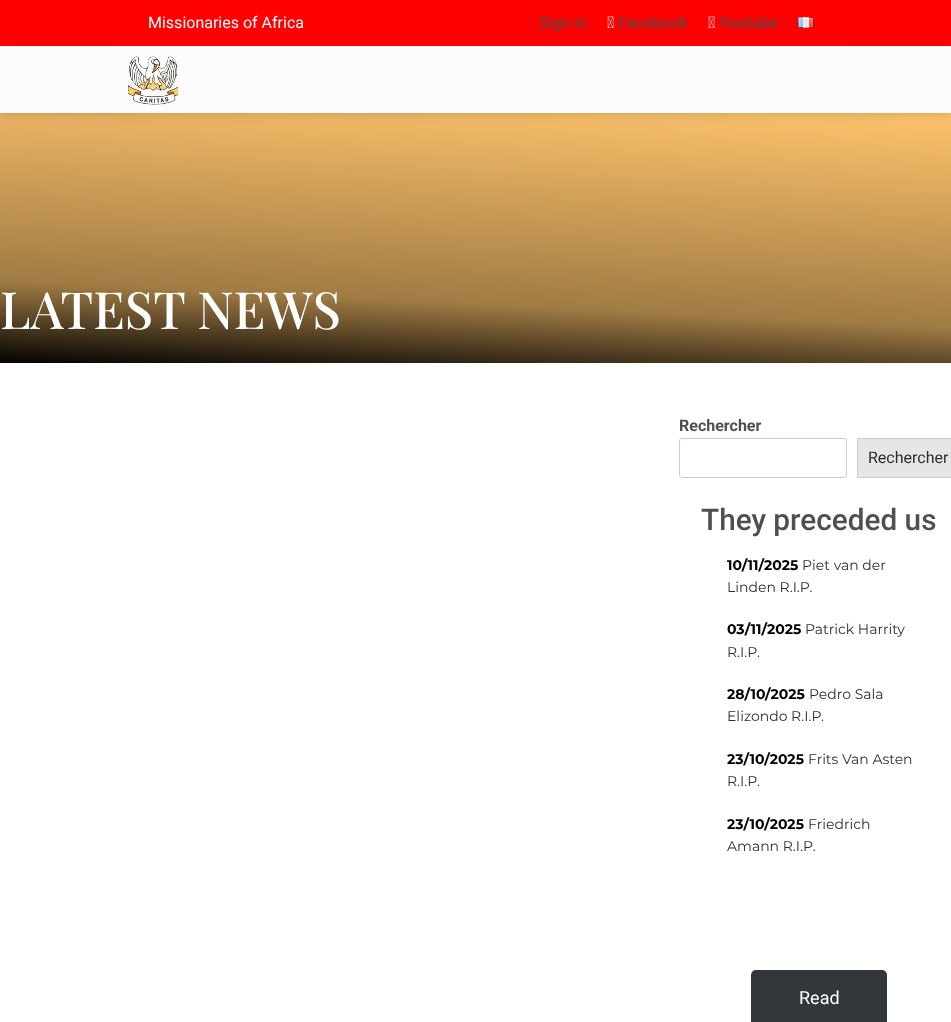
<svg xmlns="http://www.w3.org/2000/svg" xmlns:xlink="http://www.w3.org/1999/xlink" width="951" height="1022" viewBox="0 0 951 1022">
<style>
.cls-1{font:16px Roboto;fill:#ffffff}
.cls-2{font:16px Roboto;fill:#4f4f4f}
.cls-3{font:500 51.25px Playfair Display;fill:#ffffff}
.cls-4{font:bold 16px Roboto;fill:#4f4f4f}
.cls-5{font:16px Roboto;fill:#2e2e2e}
.cls-6{font:500 29.75px Roboto;fill:#4f4f4f}
.cls-7{font:bold 14px Montserrat;fill:#000000}
.cls-8{font:14px Montserrat;fill:#2e2e2e}
.cls-9{font:18px Roboto;fill:#ffffff}
</style>
<defs>
<linearGradient id="g1" gradientUnits="userSpaceOnUse" x1="483" y1="88" x2="468" y2="388"><stop offset="0" stop-color="#ffc46c"/><stop offset="0.72" stop-color="#a07b44"/><stop offset="1" stop-color="#000000"/></linearGradient>
</defs>
<rect width="100%" height="100%" fill="#ff0000"/>
<rect fill="url(#g1)" x="0" y="113" width="951" height="250"/>
<rect fill="#000000" fill-opacity="0.05" filter="blur(2px)" x="0" y="48" width="951" height="67"/>
<rect fill="#000000" fill-opacity="0.07" filter="blur(6px)" x="0" y="50" width="951" height="67"/>
<rect fill="#ff0000" x="116" y="43" width="720" height="3"/>
<image xlink:href="image0.png" x="607" y="16" width="7" height="12"/>
<image xlink:href="image0.png" x="708" y="16" width="7" height="12"/>
<image xlink:href="image1.png" x="798" y="17" width="16" height="11"/>
<rect fill="#fbfbfb" x="0" y="46" width="951" height="67"/>
<image xlink:href="image2.png" x="128" y="56" width="50" height="49"/>
<rect fill="#ffffff" x="0" y="363" width="951" height="659"/>
<rect fill="none" stroke="#cccccc" x="679.5" y="438.5" width="167" height="39" rx="2.5"/>
<rect fill="#e6e6e6" stroke="#cccccc" x="857.5" y="438.5" width="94" height="39"/>
<rect fill="#32373c" x="751" y="970" width="136" height="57" rx="5"/>
<text class="cls-1" x="148" y="28">Missionaries of Africa</text>
<text class="cls-2" x="539" y="28">Sign in</text>
<text class="cls-2" x="618" y="28">Facebook</text>
<text class="cls-2" x="719" y="28">Youtube</text>
<text class="cls-3" x="0" y="329">LATEST NEWS</text>
<text class="cls-4" x="679" y="431">Rechercher</text>
<text class="cls-5" x="868" y="463">Rechercher</text>
<text class="cls-6" x="701" y="530">They preceded us</text>
<text class="cls-7" x="727" y="570">10/11/2025</text>
<text class="cls-8" x="802" y="570">Piet van der</text>
<text class="cls-8" x="727" y="592">Linden R.I.P.</text>
<text class="cls-7" x="727" y="634">03/11/2025</text>
<text class="cls-8" x="805" y="634">Patrick Harrity</text>
<text class="cls-8" x="727" y="657">R.I.P.</text>
<text class="cls-7" x="727" y="699">28/10/2025</text>
<text class="cls-8" x="809" y="699">Pedro Sala</text>
<text class="cls-8" x="727" y="721">Elizondo R.I.P.</text>
<text class="cls-7" x="727" y="764">23/10/2025</text>
<text class="cls-8" x="808" y="764">Frits Van Asten</text>
<text class="cls-8" x="727" y="786">R.I.P.</text>
<text class="cls-7" x="727" y="829">23/10/2025</text>
<text class="cls-8" x="808" y="829">Friedrich</text>
<text class="cls-8" x="727" y="851">Amann R.I.P.</text>
<text class="cls-9" x="799" y="1004">Read</text>
</svg>
